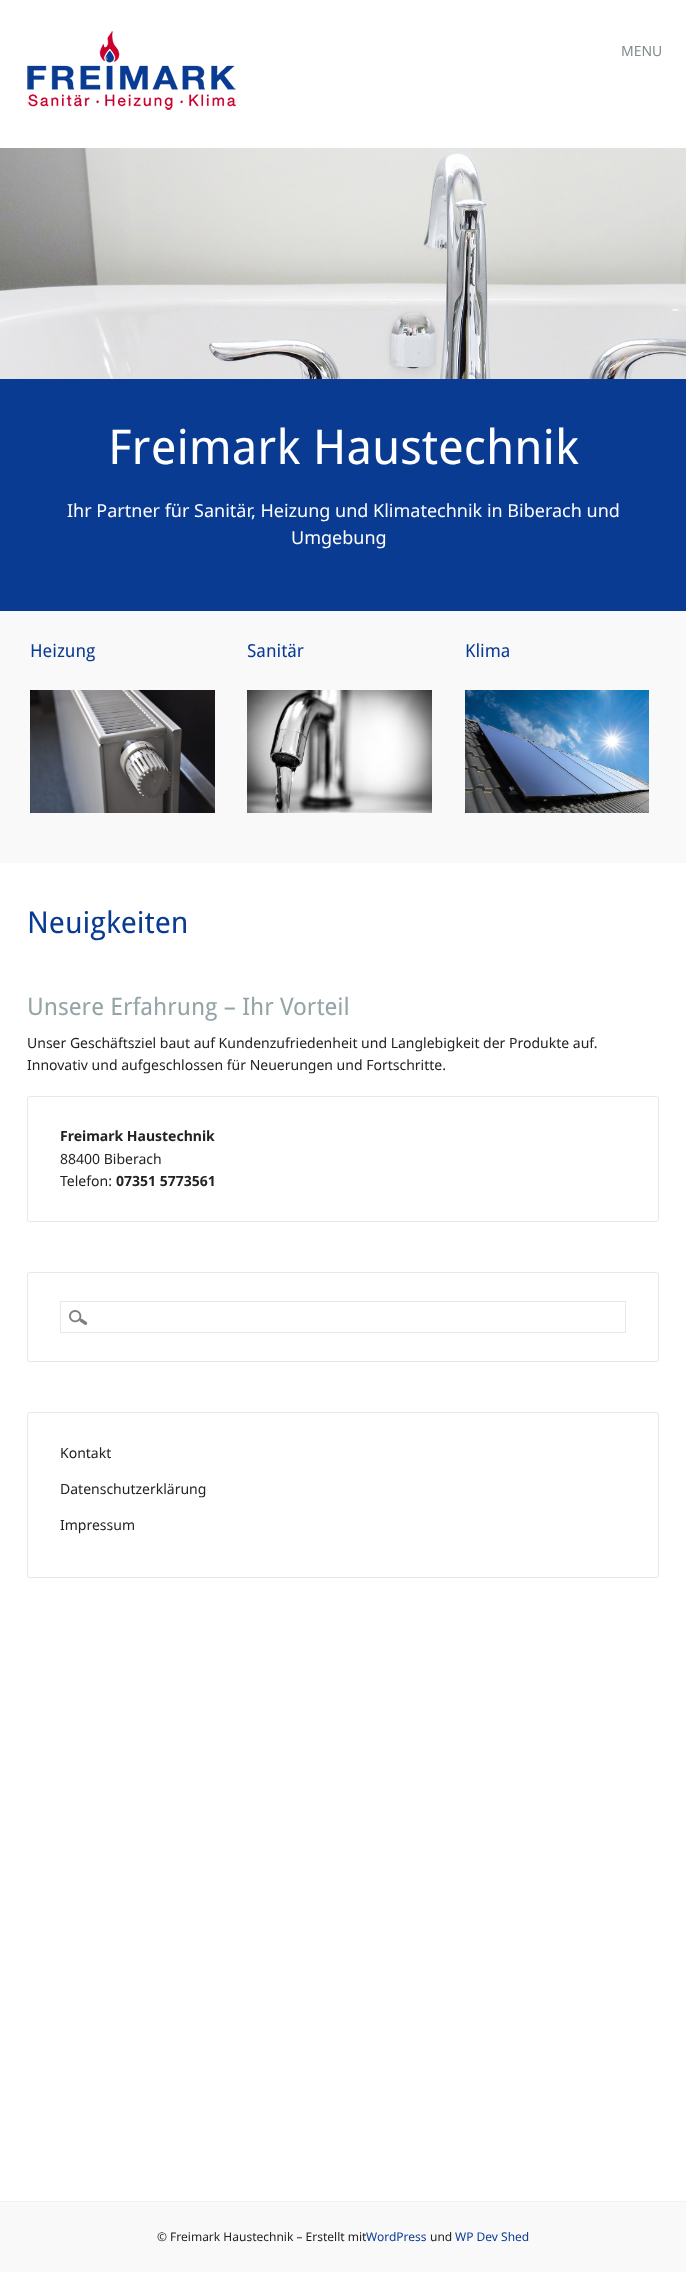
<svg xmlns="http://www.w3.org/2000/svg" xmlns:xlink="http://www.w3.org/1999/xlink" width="686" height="2272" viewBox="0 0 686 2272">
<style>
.cls-1{font:14px Noto Sans;fill:#7f8c8d}
.cls-2{font:48px Droid Sans;fill:#ffffff}
.cls-3{font:18px Noto Sans;fill:#ffffff}
.cls-4{font:18px Droid Sans;fill:#0a3b93}
.cls-5{font:30px Droid Sans;fill:#0a3b93}
.cls-6{font:24px Droid Sans;fill:#95a5a6}
.cls-7{font:14px Noto Sans;fill:#222222}
.cls-8{font:bold 14px Noto Sans;fill:#222222}
.cls-9{font:12px Noto Sans;fill:#222222}
.cls-10{font:12px Noto Sans;fill:#0a3b93}
</style>
<rect width="100%" height="100%" fill="#ffffff"/>
<image xlink:href="image0.png" x="27" y="31" width="209" height="79"/>
<image xlink:href="image1.png" x="0" y="148" width="686" height="231"/>
<rect fill="#0a3b93" x="0" y="379" width="686" height="232"/>
<rect fill="#f9f9f9" x="0" y="611" width="686" height="252"/>
<image xlink:href="image2.png" x="30" y="690" width="185" height="123"/>
<image xlink:href="image3.png" x="247" y="690" width="185" height="123"/>
<image xlink:href="image4.png" x="465" y="690" width="184" height="123"/>
<rect fill="none" stroke="#e4e9ea" x="27.5" y="1096.5" width="631" height="125" rx="2.5"/>
<rect fill="none" stroke="#e4e9ea" x="27.5" y="1272.5" width="631" height="89" rx="2.5"/>
<image xlink:href="image5.png" x="69" y="1310" width="19" height="15"/>
<rect fill="none" stroke="#e4e9ea" x="60.5" y="1301.5" width="565" height="31"/>
<rect fill="none" stroke="#e4e9ea" x="27.5" y="1412.5" width="631" height="165" rx="2.5"/>
<rect fill="#f0f0f0" filter="blur(0.5px)" x="0" y="2201" width="686" height="70"/>
<rect fill="#f9f9f9" x="0" y="2202" width="686" height="70"/>
<text class="cls-1" x="621" y="56">MENU</text>
<text class="cls-2" x="108" y="464">Freimark Haustechnik</text>
<text class="cls-3" x="67" y="517">Ihr Partner für Sanitär, Heizung und Klimatechnik in Biberach und</text>
<text class="cls-3" x="291" y="544">Umgebung</text>
<text class="cls-4" x="30" y="657">Heizung</text>
<text class="cls-4" x="247" y="657">Sanitär</text>
<text class="cls-4" x="465" y="657">Klima</text>
<text class="cls-5" x="27" y="933">Neuigkeiten</text>
<text class="cls-6" x="27" y="1015">Unsere Erfahrung – Ihr Vorteil</text>
<text class="cls-7"><tspan x="27" y="1048">Unser Geschäftsziel baut auf Kundenzufriedenheit und Langlebigkeit der Produkte auf.</tspan><tspan x="27" y="1070">Innovativ und aufgeschlossen für Neuerungen und Fortschritte.</tspan></text>
<text class="cls-8" x="60" y="1141">Freimark Haustechnik</text>
<text class="cls-7"><tspan x="60" y="1164">88400 Biberach</tspan><tspan x="60" y="1186">Telefon:</tspan></text>
<text class="cls-8" x="116" y="1186">07351 5773561</text>
<text class="cls-7" x="60" y="1458">Kontakt</text>
<text class="cls-7" x="60" y="1494">Datenschutzerklärung</text>
<text class="cls-7" x="60" y="1530">Impressum</text>
<text class="cls-9" x="157" y="2241">© Freimark Haustechnik – Erstellt mit</text>
<text class="cls-10" x="366" y="2241">WordPress</text>
<text class="cls-9" x="430" y="2241">und</text>
<text class="cls-10" x="455" y="2241">WP Dev Shed</text>
</svg>
